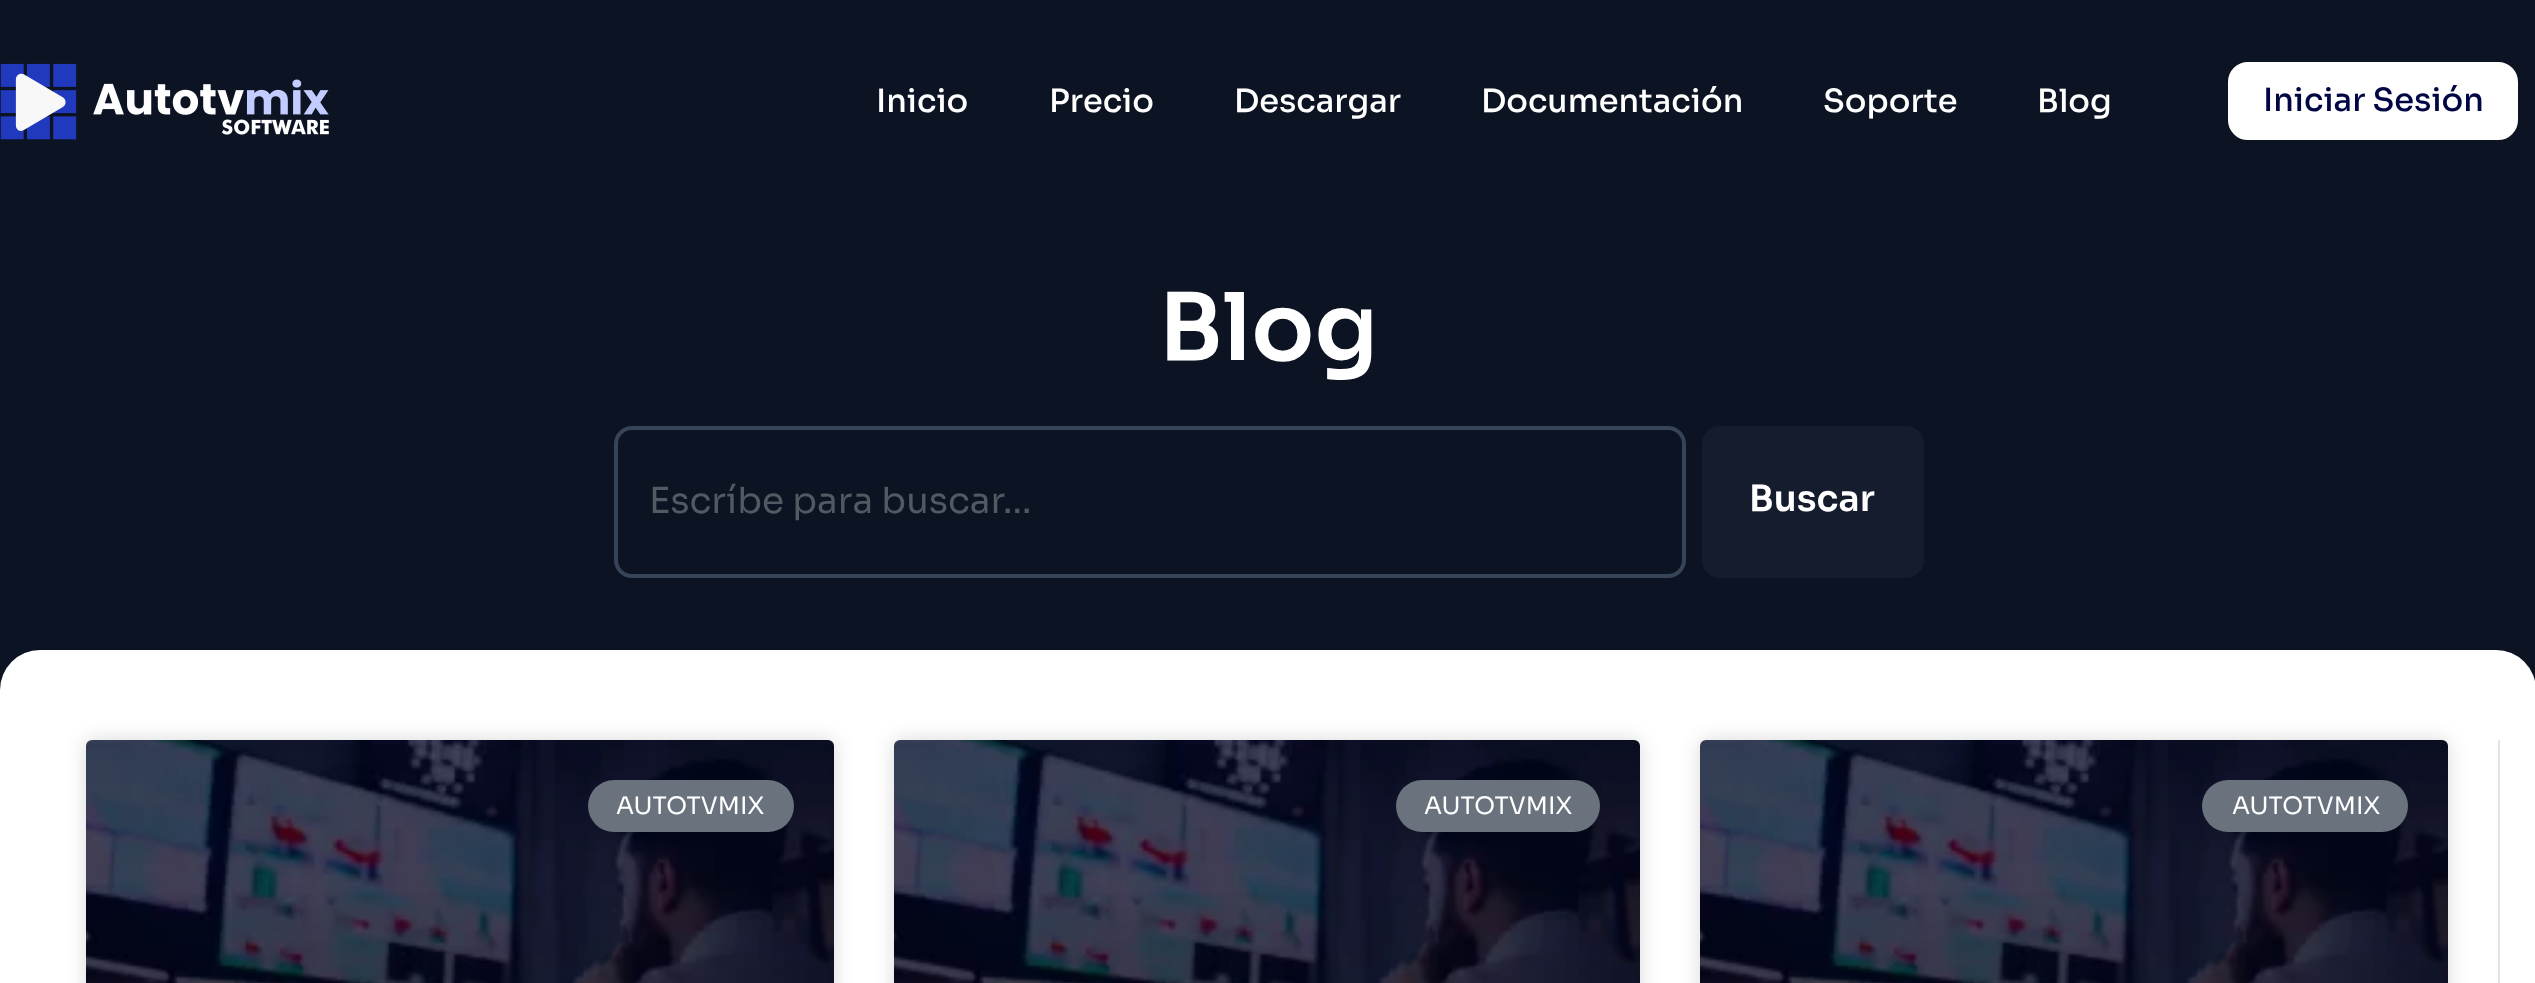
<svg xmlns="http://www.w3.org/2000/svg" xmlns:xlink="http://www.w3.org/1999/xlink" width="2535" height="983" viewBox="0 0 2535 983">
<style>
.cls-1{font:500 32px Sora;fill:#ffffff}
.cls-2{font:500 32px Sora;fill:#000543}
.cls-3{font:600 93px Sora;fill:#ffffff}
.cls-4{font:36px Sora;fill:#515962}
.cls-5{font:600 36px Sora;fill:#ffffff}
.cls-6{font:24px Sora;fill:#ffffff}
</style>
<defs>
<linearGradient id="g1" gradientUnits="userSpaceOnUse" x1="460" y1="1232" x2="460" y2="740"><stop offset="0" stop-color="#000000" stop-opacity="0.35"/><stop offset="0.75" stop-color="#000000" stop-opacity="0"/></linearGradient>
<linearGradient id="g2" gradientUnits="userSpaceOnUse" x1="1267" y1="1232" x2="1267" y2="740"><stop offset="0" stop-color="#000000" stop-opacity="0.35"/><stop offset="0.75" stop-color="#000000" stop-opacity="0"/></linearGradient>
<linearGradient id="g3" gradientUnits="userSpaceOnUse" x1="2074" y1="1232" x2="2074" y2="740"><stop offset="0" stop-color="#000000" stop-opacity="0.35"/><stop offset="0.75" stop-color="#000000" stop-opacity="0"/></linearGradient>
</defs>
<rect width="100%" height="100%" fill="#0c1322"/>
<image xlink:href="image0.png" x="0" y="63" width="329" height="77"/>
<rect fill="#ffffff" stroke="#ffffff" stroke-width="2" x="2229" y="63" width="288" height="76" rx="19"/>
<rect fill="none" stroke="#374458" stroke-width="4" x="616" y="428" width="1068" height="148" rx="16"/>
<rect fill="#141c2e" x="1702" y="426" width="222" height="152" rx="18"/>
<rect fill="#ffffff" x="0" y="650" width="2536" height="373" rx="40"/>
<rect fill="#e3e4ea" x="2498" y="740" width="2" height="243"/>
<rect fill="#000000" fill-opacity="0.15" filter="blur(10px)" x="86" y="740" width="748" height="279" rx="6"/>
<image xlink:href="image1.png" x="86" y="740" width="748" height="243"/>
<rect fill="url(#g1)" x="86" y="894" width="748" height="89"/>
<rect fill="#69727d" x="588" y="780" width="206" height="52" rx="26"/>
<rect fill="#000000" fill-opacity="0.15" filter="blur(10px)" x="894" y="740" width="746" height="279" rx="6"/>
<image xlink:href="image2.png" x="894" y="740" width="746" height="243"/>
<rect fill="url(#g2)" x="894" y="894" width="746" height="89"/>
<rect fill="#69727d" x="1396" y="780" width="204" height="52" rx="26"/>
<rect fill="#000000" fill-opacity="0.15" filter="blur(10px)" x="1700" y="740" width="748" height="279" rx="6"/>
<image xlink:href="image1.png" x="1700" y="740" width="748" height="243"/>
<rect fill="url(#g3)" x="1700" y="894" width="748" height="89"/>
<rect fill="#69727d" x="2202" y="780" width="206" height="52" rx="26"/>
<text class="cls-1" x="876" y="112">Inicio</text>
<text class="cls-1" x="1049" y="112">Precio</text>
<text class="cls-1" x="1234" y="112">Descargar</text>
<text class="cls-1" x="1481" y="112">Documentación</text>
<text class="cls-1" x="1823" y="112">Soporte</text>
<text class="cls-1" x="2037" y="112">Blog</text>
<text class="cls-2" x="2263" y="111">Iniciar Sesión</text>
<text class="cls-3" x="1159" y="360">Blog</text>
<text class="cls-4" x="649" y="513">Escríbe para buscar...</text>
<text class="cls-5" x="1749" y="511">Buscar</text>
<text class="cls-6" x="616" y="814">AUTOTVMIX</text>
<text class="cls-6" x="1424" y="814">AUTOTVMIX</text>
<text class="cls-6" x="2232" y="814">AUTOTVMIX</text>
</svg>
